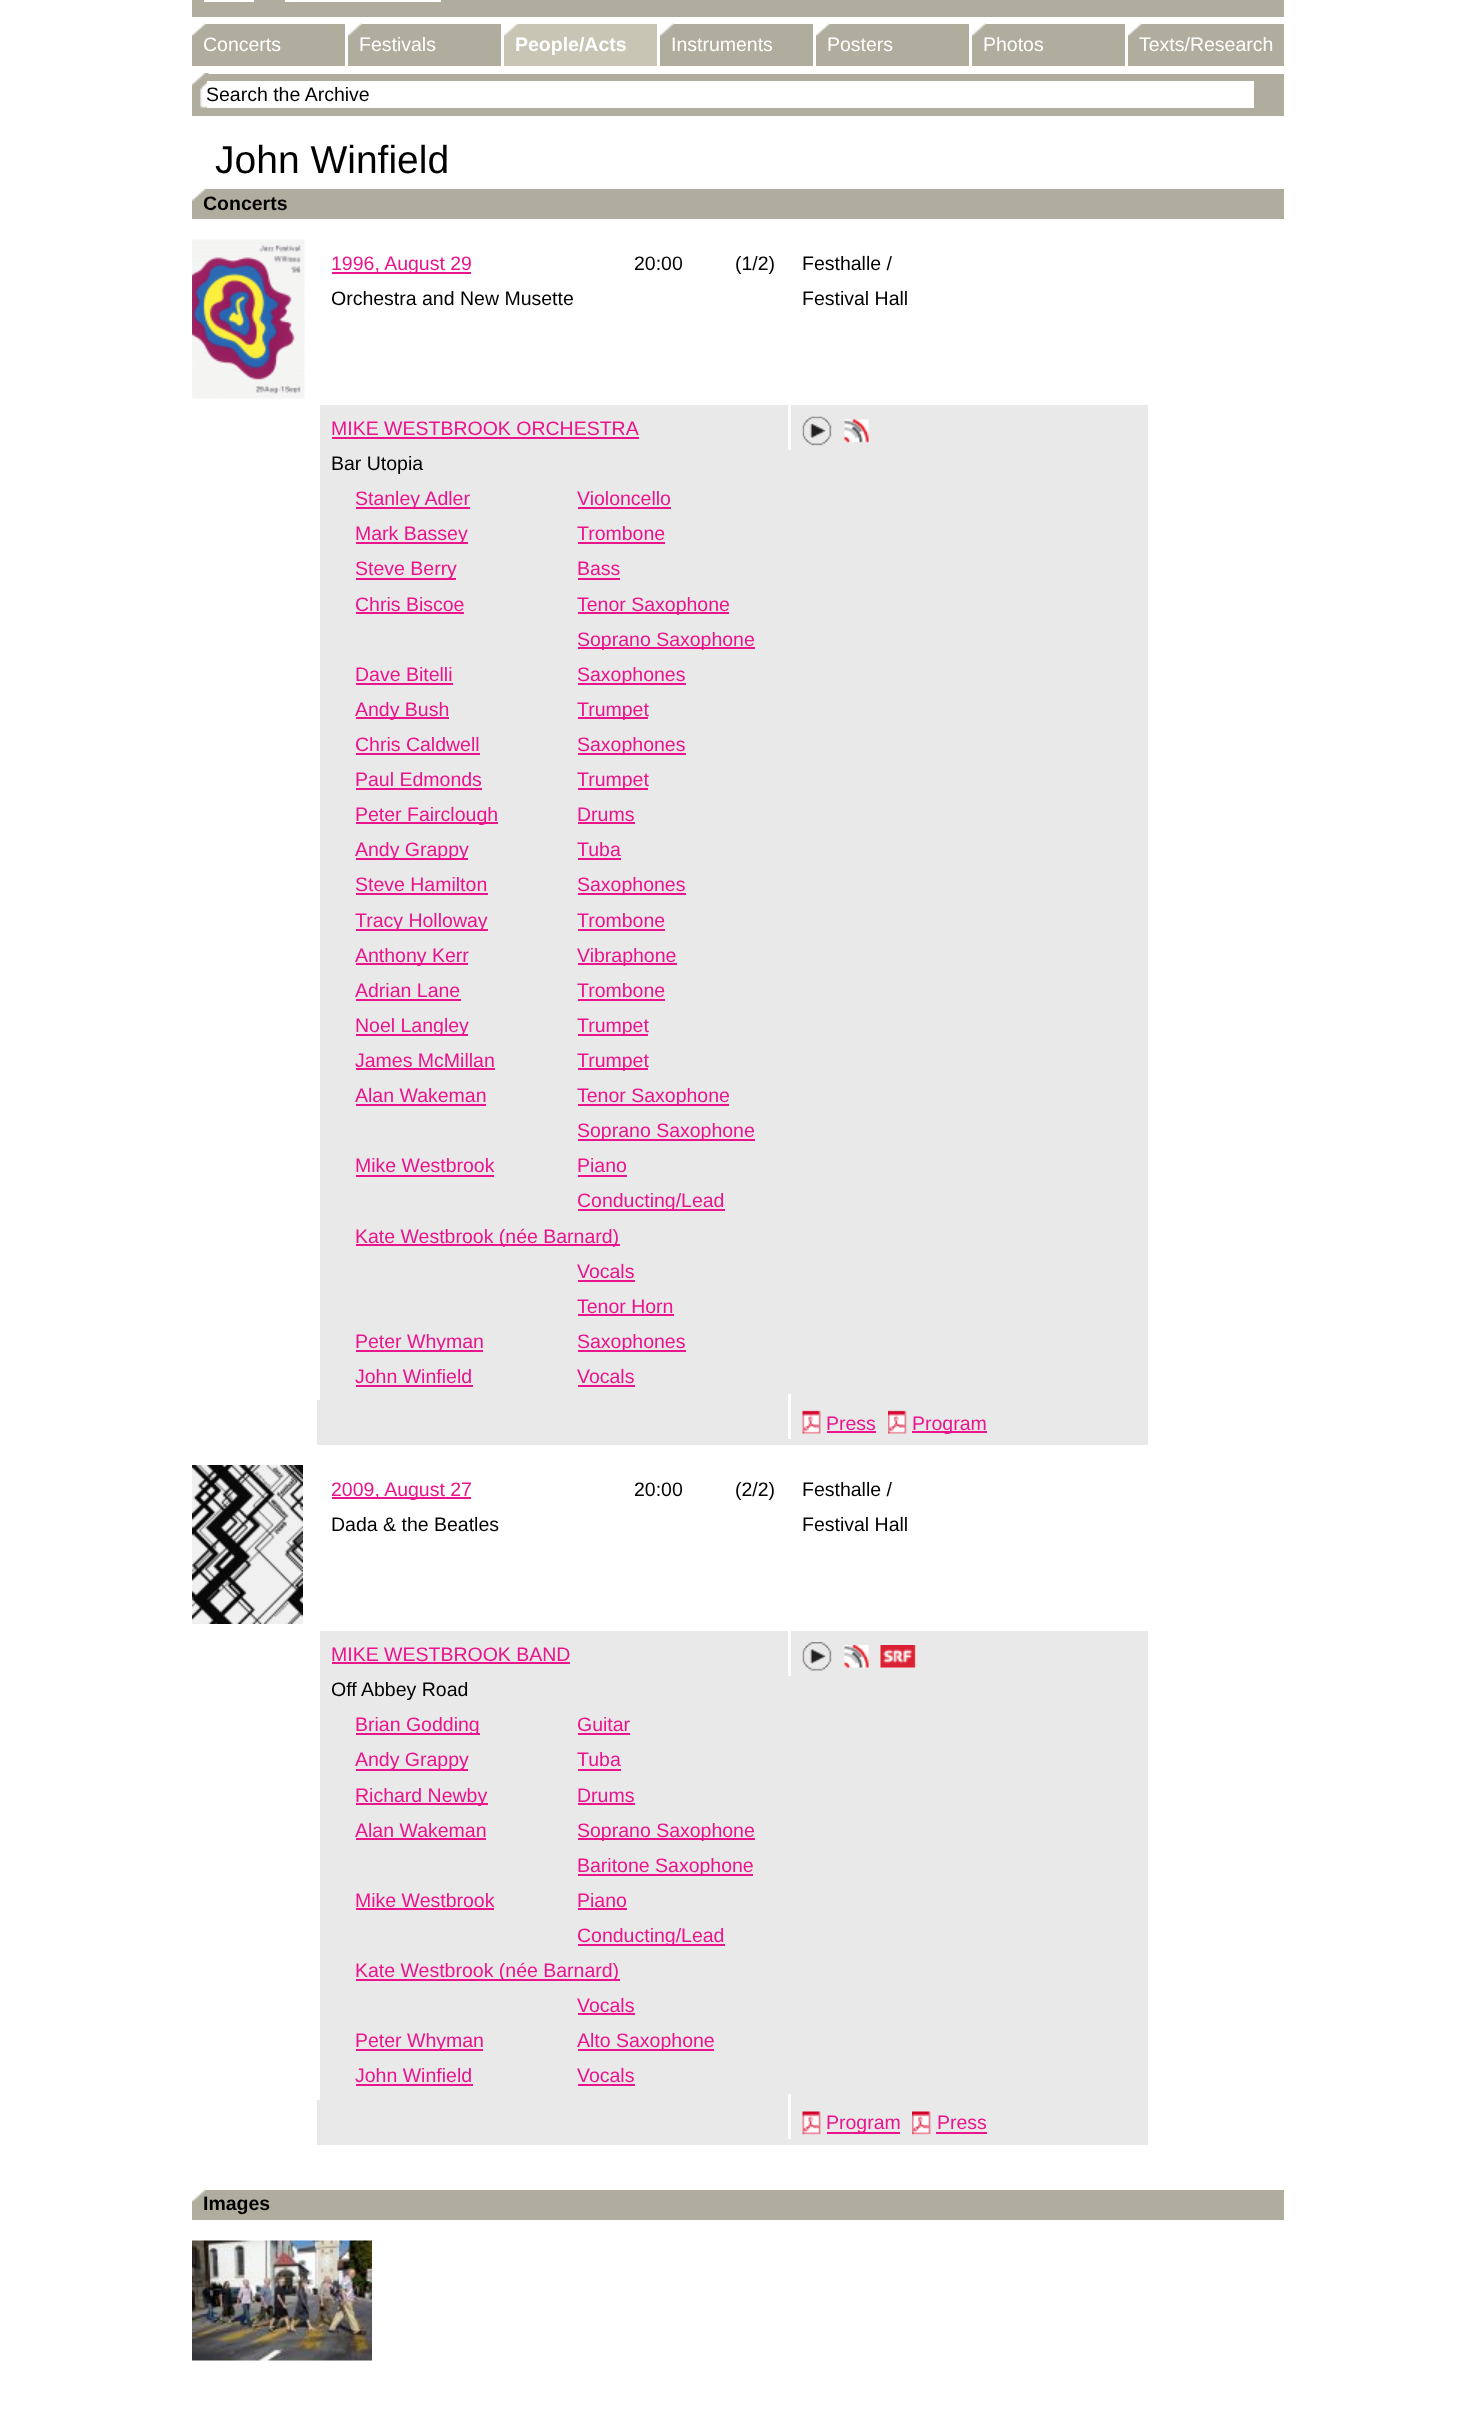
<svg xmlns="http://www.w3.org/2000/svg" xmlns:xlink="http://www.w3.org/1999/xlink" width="1474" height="2417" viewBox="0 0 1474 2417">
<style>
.cls-1{font:19.5px Liberation Sans;fill:#ffffff}
.cls-2{font:bold 19.5px Liberation Sans;fill:#ffffff}
.cls-3{font:19.5px Liberation Sans;fill:#000000}
.cls-4{font:39px Liberation Sans;fill:#000000}
.cls-5{font:bold 19.5px Liberation Sans;fill:#000000}
.cls-6{font:19.5px Liberation Sans;fill:#ea148c}
</style>
<rect width="100%" height="100%" fill="#ffffff"/>
<rect fill="#b0ad9f" x="192" y="0" width="1092" height="17"/>
<rect fill="#ffffff" x="204" y="0" width="50" height="2"/>
<rect fill="#ffffff" x="285" y="0" width="156" height="2"/>
<rect fill="#b0ad9f" x="192" y="24" width="153" height="42"/>
<image xlink:href="image0.png" x="192" y="23" width="14" height="13"/>
<rect fill="#b0ad9f" x="348" y="24" width="153" height="42"/>
<image xlink:href="image0.png" x="348" y="23" width="14" height="13"/>
<rect fill="#c8c5b5" x="504" y="24" width="153" height="42"/>
<image xlink:href="image1.png" x="504" y="23" width="14" height="13"/>
<rect fill="#b0ad9f" x="660" y="24" width="153" height="42"/>
<image xlink:href="image0.png" x="660" y="23" width="14" height="13"/>
<rect fill="#b0ad9f" x="816" y="24" width="153" height="42"/>
<image xlink:href="image0.png" x="816" y="23" width="14" height="13"/>
<rect fill="#b0ad9f" x="972" y="24" width="153" height="42"/>
<image xlink:href="image0.png" x="972" y="23" width="14" height="13"/>
<rect fill="#b0ad9f" x="1128" y="24" width="156" height="42"/>
<image xlink:href="image0.png" x="1128" y="23" width="14" height="13"/>
<rect fill="#b0ad9f" x="192" y="74" width="1092" height="42"/>
<image xlink:href="image2.png" x="192" y="73" width="17" height="35"/>
<rect fill="#ffffff" x="207" y="81" width="1047" height="27"/>
<rect fill="#b0ad9f" x="192" y="189" width="1092" height="30"/>
<image xlink:href="image0.png" x="192" y="188" width="14" height="13"/>
<image xlink:href="image3.png" x="192" y="239" width="113" height="160"/>
<rect fill="#ea148c" x="332" y="272" width="139" height="2"/>
<rect fill="#e9e9ea" x="317" y="405" width="831" height="1040"/>
<rect fill="#ffffff" x="317" y="405" width="3" height="995"/>
<rect fill="#ea148c" x="332" y="437" width="307" height="2"/>
<rect fill="#ea148c" x="356" y="507" width="114" height="2"/>
<rect fill="#ea148c" x="578" y="507" width="93" height="2"/>
<rect fill="#ea148c" x="356" y="542" width="112" height="2"/>
<rect fill="#ea148c" x="578" y="542" width="87" height="2"/>
<rect fill="#ea148c" x="356" y="578" width="100" height="2"/>
<rect fill="#ea148c" x="578" y="578" width="42" height="2"/>
<rect fill="#ea148c" x="356" y="612" width="108" height="2"/>
<rect fill="#ea148c" x="578" y="612" width="151" height="2"/>
<rect fill="#ea148c" x="578" y="647" width="177" height="2"/>
<rect fill="#ea148c" x="356" y="683" width="97" height="2"/>
<rect fill="#ea148c" x="578" y="683" width="108" height="2"/>
<rect fill="#ea148c" x="356" y="717" width="93" height="2"/>
<rect fill="#ea148c" x="578" y="717" width="70" height="2"/>
<rect fill="#ea148c" x="356" y="753" width="124" height="2"/>
<rect fill="#ea148c" x="578" y="753" width="108" height="2"/>
<rect fill="#ea148c" x="356" y="788" width="126" height="2"/>
<rect fill="#ea148c" x="578" y="788" width="70" height="2"/>
<rect fill="#ea148c" x="356" y="822" width="142" height="2"/>
<rect fill="#ea148c" x="578" y="822" width="57" height="2"/>
<rect fill="#ea148c" x="356" y="858" width="112" height="2"/>
<rect fill="#ea148c" x="578" y="858" width="43" height="2"/>
<rect fill="#ea148c" x="356" y="893" width="132" height="2"/>
<rect fill="#ea148c" x="578" y="893" width="108" height="2"/>
<rect fill="#ea148c" x="356" y="929" width="132" height="2"/>
<rect fill="#ea148c" x="578" y="929" width="87" height="2"/>
<rect fill="#ea148c" x="356" y="963" width="112" height="2"/>
<rect fill="#ea148c" x="578" y="963" width="99" height="2"/>
<rect fill="#ea148c" x="356" y="999" width="105" height="2"/>
<rect fill="#ea148c" x="578" y="999" width="87" height="2"/>
<rect fill="#ea148c" x="356" y="1034" width="112" height="2"/>
<rect fill="#ea148c" x="578" y="1034" width="70" height="2"/>
<rect fill="#ea148c" x="356" y="1068" width="139" height="2"/>
<rect fill="#ea148c" x="578" y="1068" width="70" height="2"/>
<rect fill="#ea148c" x="356" y="1104" width="130" height="2"/>
<rect fill="#ea148c" x="578" y="1104" width="151" height="2"/>
<rect fill="#ea148c" x="578" y="1139" width="177" height="2"/>
<rect fill="#ea148c" x="356" y="1175" width="138" height="2"/>
<rect fill="#ea148c" x="578" y="1175" width="49" height="2"/>
<rect fill="#ea148c" x="578" y="1209" width="147" height="2"/>
<rect fill="#ea148c" x="356" y="1244" width="264" height="2"/>
<rect fill="#ea148c" x="578" y="1280" width="57" height="2"/>
<rect fill="#ea148c" x="578" y="1314" width="96" height="2"/>
<rect fill="#ea148c" x="356" y="1350" width="127" height="2"/>
<rect fill="#ea148c" x="578" y="1350" width="108" height="2"/>
<rect fill="#ea148c" x="356" y="1385" width="117" height="2"/>
<rect fill="#ea148c" x="578" y="1385" width="57" height="2"/>
<rect fill="#ffffff" x="788" y="405" width="3" height="45"/>
<image xlink:href="image4.png" x="802" y="416" width="30" height="30"/>
<image xlink:href="image5.png" x="844" y="419" width="25" height="24"/>
<rect fill="#ffffff" x="788" y="1394" width="3" height="45"/>
<image xlink:href="image6.png" x="802" y="1410" width="19" height="24"/>
<rect fill="#ea148c" x="827" y="1431" width="49" height="2"/>
<image xlink:href="image7.png" x="888" y="1410" width="19" height="24"/>
<rect fill="#ea148c" x="912" y="1431" width="75" height="2"/>
<image xlink:href="image8.png" x="192" y="1465" width="111" height="159"/>
<rect fill="#ea148c" x="332" y="1497" width="139" height="2"/>
<rect fill="#e9e9ea" x="317" y="1631" width="831" height="514"/>
<rect fill="#ffffff" x="317" y="1631" width="3" height="469"/>
<rect fill="#ea148c" x="332" y="1662" width="238" height="2"/>
<rect fill="#ea148c" x="356" y="1733" width="124" height="2"/>
<rect fill="#ea148c" x="578" y="1733" width="52" height="2"/>
<rect fill="#ea148c" x="356" y="1769" width="112" height="2"/>
<rect fill="#ea148c" x="578" y="1769" width="43" height="2"/>
<rect fill="#ea148c" x="356" y="1803" width="132" height="2"/>
<rect fill="#ea148c" x="578" y="1803" width="57" height="2"/>
<rect fill="#ea148c" x="356" y="1838" width="130" height="2"/>
<rect fill="#ea148c" x="578" y="1838" width="177" height="2"/>
<rect fill="#ea148c" x="578" y="1874" width="175" height="2"/>
<rect fill="#ea148c" x="356" y="1908" width="138" height="2"/>
<rect fill="#ea148c" x="578" y="1908" width="49" height="2"/>
<rect fill="#ea148c" x="578" y="1944" width="147" height="2"/>
<rect fill="#ea148c" x="356" y="1979" width="264" height="2"/>
<rect fill="#ea148c" x="578" y="2013" width="57" height="2"/>
<rect fill="#ea148c" x="356" y="2049" width="127" height="2"/>
<rect fill="#ea148c" x="578" y="2049" width="136" height="2"/>
<rect fill="#ea148c" x="356" y="2084" width="117" height="2"/>
<rect fill="#ea148c" x="578" y="2084" width="57" height="2"/>
<rect fill="#ffffff" x="788" y="1631" width="3" height="45"/>
<image xlink:href="image9.png" x="802" y="1642" width="30" height="29"/>
<image xlink:href="image10.png" x="844" y="1645" width="25" height="23"/>
<image xlink:href="image11.png" x="880" y="1645" width="36" height="23"/>
<rect fill="#ffffff" x="788" y="2094" width="3" height="45"/>
<image xlink:href="image12.png" x="802" y="2111" width="19" height="24"/>
<rect fill="#ea148c" x="827" y="2132" width="73" height="2"/>
<image xlink:href="image13.png" x="912" y="2111" width="19" height="24"/>
<rect fill="#ea148c" x="936" y="2132" width="51" height="2"/>
<rect fill="#b0ad9f" x="192" y="2190" width="1092" height="30"/>
<image xlink:href="image0.png" x="192" y="2189" width="14" height="13"/>
<image xlink:href="image14.png" x="192" y="2240" width="180" height="121"/>
<text class="cls-1" x="203" y="51">Concerts</text>
<text class="cls-1" x="359" y="51">Festivals</text>
<text class="cls-2" x="515" y="51">People/Acts</text>
<text class="cls-1" x="671" y="51">Instruments</text>
<text class="cls-1" x="827" y="51">Posters</text>
<text class="cls-1" x="983" y="51">Photos</text>
<text class="cls-1" x="1139" y="51">Texts/Research</text>
<text class="cls-3" x="206" y="101">Search the Archive</text>
<text class="cls-4" x="215" y="173">John Winfield</text>
<text class="cls-5" x="203" y="210">Concerts</text>
<text class="cls-6" x="331" y="270">1996, August 29</text>
<text class="cls-3" x="331" y="305">Orchestra and New Musette</text>
<text class="cls-3" x="634" y="270">20:00</text>
<text class="cls-3" x="735" y="270">(1/2)</text>
<text class="cls-3"><tspan x="802" y="270">Festhalle /</tspan><tspan x="802" y="305">Festival Hall</tspan></text>
<text class="cls-6" x="331" y="435">MIKE WESTBROOK ORCHESTRA</text>
<text class="cls-3" x="331" y="470">Bar Utopia</text>
<text class="cls-6" x="355" y="505">Stanley Adler</text>
<text class="cls-6" x="577" y="505">Violoncello</text>
<text class="cls-6" x="355" y="540">Mark Bassey</text>
<text class="cls-6" x="577" y="540">Trombone</text>
<text class="cls-6" x="355" y="575">Steve Berry</text>
<text class="cls-6" x="577" y="575">Bass</text>
<text class="cls-6" x="355" y="611">Chris Biscoe</text>
<text class="cls-6"><tspan x="577" y="611">Tenor Saxophone</tspan><tspan x="577" y="646">Soprano Saxophone</tspan></text>
<text class="cls-6" x="355" y="681">Dave Bitelli</text>
<text class="cls-6" x="577" y="681">Saxophones</text>
<text class="cls-6" x="355" y="716">Andy Bush</text>
<text class="cls-6" x="577" y="716">Trumpet</text>
<text class="cls-6" x="355" y="751">Chris Caldwell</text>
<text class="cls-6" x="577" y="751">Saxophones</text>
<text class="cls-6" x="355" y="786">Paul Edmonds</text>
<text class="cls-6" x="577" y="786">Trumpet</text>
<text class="cls-6" x="355" y="821">Peter Fairclough</text>
<text class="cls-6" x="577" y="821">Drums</text>
<text class="cls-6" x="355" y="856">Andy Grappy</text>
<text class="cls-6" x="577" y="856">Tuba</text>
<text class="cls-6" x="355" y="891">Steve Hamilton</text>
<text class="cls-6" x="577" y="891">Saxophones</text>
<text class="cls-6" x="355" y="927">Tracy Holloway</text>
<text class="cls-6" x="577" y="927">Trombone</text>
<text class="cls-6" x="355" y="962">Anthony Kerr</text>
<text class="cls-6" x="577" y="962">Vibraphone</text>
<text class="cls-6" x="355" y="997">Adrian Lane</text>
<text class="cls-6" x="577" y="997">Trombone</text>
<text class="cls-6" x="355" y="1032">Noel Langley</text>
<text class="cls-6" x="577" y="1032">Trumpet</text>
<text class="cls-6" x="355" y="1067">James McMillan</text>
<text class="cls-6" x="577" y="1067">Trumpet</text>
<text class="cls-6" x="355" y="1102">Alan Wakeman</text>
<text class="cls-6"><tspan x="577" y="1102">Tenor Saxophone</tspan><tspan x="577" y="1137">Soprano Saxophone</tspan></text>
<text class="cls-6" x="355" y="1172">Mike Westbrook</text>
<text class="cls-6"><tspan x="577" y="1172">Piano</tspan><tspan x="577" y="1207">Conducting/Lead</tspan></text>
<text class="cls-6" x="355" y="1243">Kate Westbrook (née Barnard)</text>
<text class="cls-6"><tspan x="577" y="1278">Vocals</tspan><tspan x="577" y="1313">Tenor Horn</tspan></text>
<text class="cls-6" x="355" y="1348">Peter Whyman</text>
<text class="cls-6" x="577" y="1348">Saxophones</text>
<text class="cls-6" x="355" y="1383">John Winfield</text>
<text class="cls-6" x="577" y="1383">Vocals</text>
<text class="cls-6" x="826" y="1430">Press</text>
<text class="cls-6" x="912" y="1430">Program</text>
<text class="cls-6" x="331" y="1496">2009, August 27</text>
<text class="cls-3" x="331" y="1531">Dada &amp; the Beatles</text>
<text class="cls-3" x="634" y="1496">20:00</text>
<text class="cls-3" x="735" y="1496">(2/2)</text>
<text class="cls-3"><tspan x="802" y="1496">Festhalle /</tspan><tspan x="802" y="1531">Festival Hall</tspan></text>
<text class="cls-6" x="331" y="1661">MIKE WESTBROOK BAND</text>
<text class="cls-3" x="331" y="1696">Off Abbey Road</text>
<text class="cls-6" x="355" y="1731">Brian Godding</text>
<text class="cls-6" x="577" y="1731">Guitar</text>
<text class="cls-6" x="355" y="1766">Andy Grappy</text>
<text class="cls-6" x="577" y="1766">Tuba</text>
<text class="cls-6" x="355" y="1802">Richard Newby</text>
<text class="cls-6" x="577" y="1802">Drums</text>
<text class="cls-6" x="355" y="1837">Alan Wakeman</text>
<text class="cls-6"><tspan x="577" y="1837">Soprano Saxophone</tspan><tspan x="577" y="1872">Baritone Saxophone</tspan></text>
<text class="cls-6" x="355" y="1907">Mike Westbrook</text>
<text class="cls-6"><tspan x="577" y="1907">Piano</tspan><tspan x="577" y="1942">Conducting/Lead</tspan></text>
<text class="cls-6" x="355" y="1977">Kate Westbrook (née Barnard)</text>
<text class="cls-6" x="577" y="2012">Vocals</text>
<text class="cls-6" x="355" y="2047">Peter Whyman</text>
<text class="cls-6" x="577" y="2047">Alto Saxophone</text>
<text class="cls-6" x="355" y="2082">John Winfield</text>
<text class="cls-6" x="577" y="2082">Vocals</text>
<text class="cls-6" x="826" y="2129">Program</text>
<text class="cls-6" x="937" y="2129">Press</text>
<text class="cls-5" x="203" y="2210">Images</text>
</svg>
